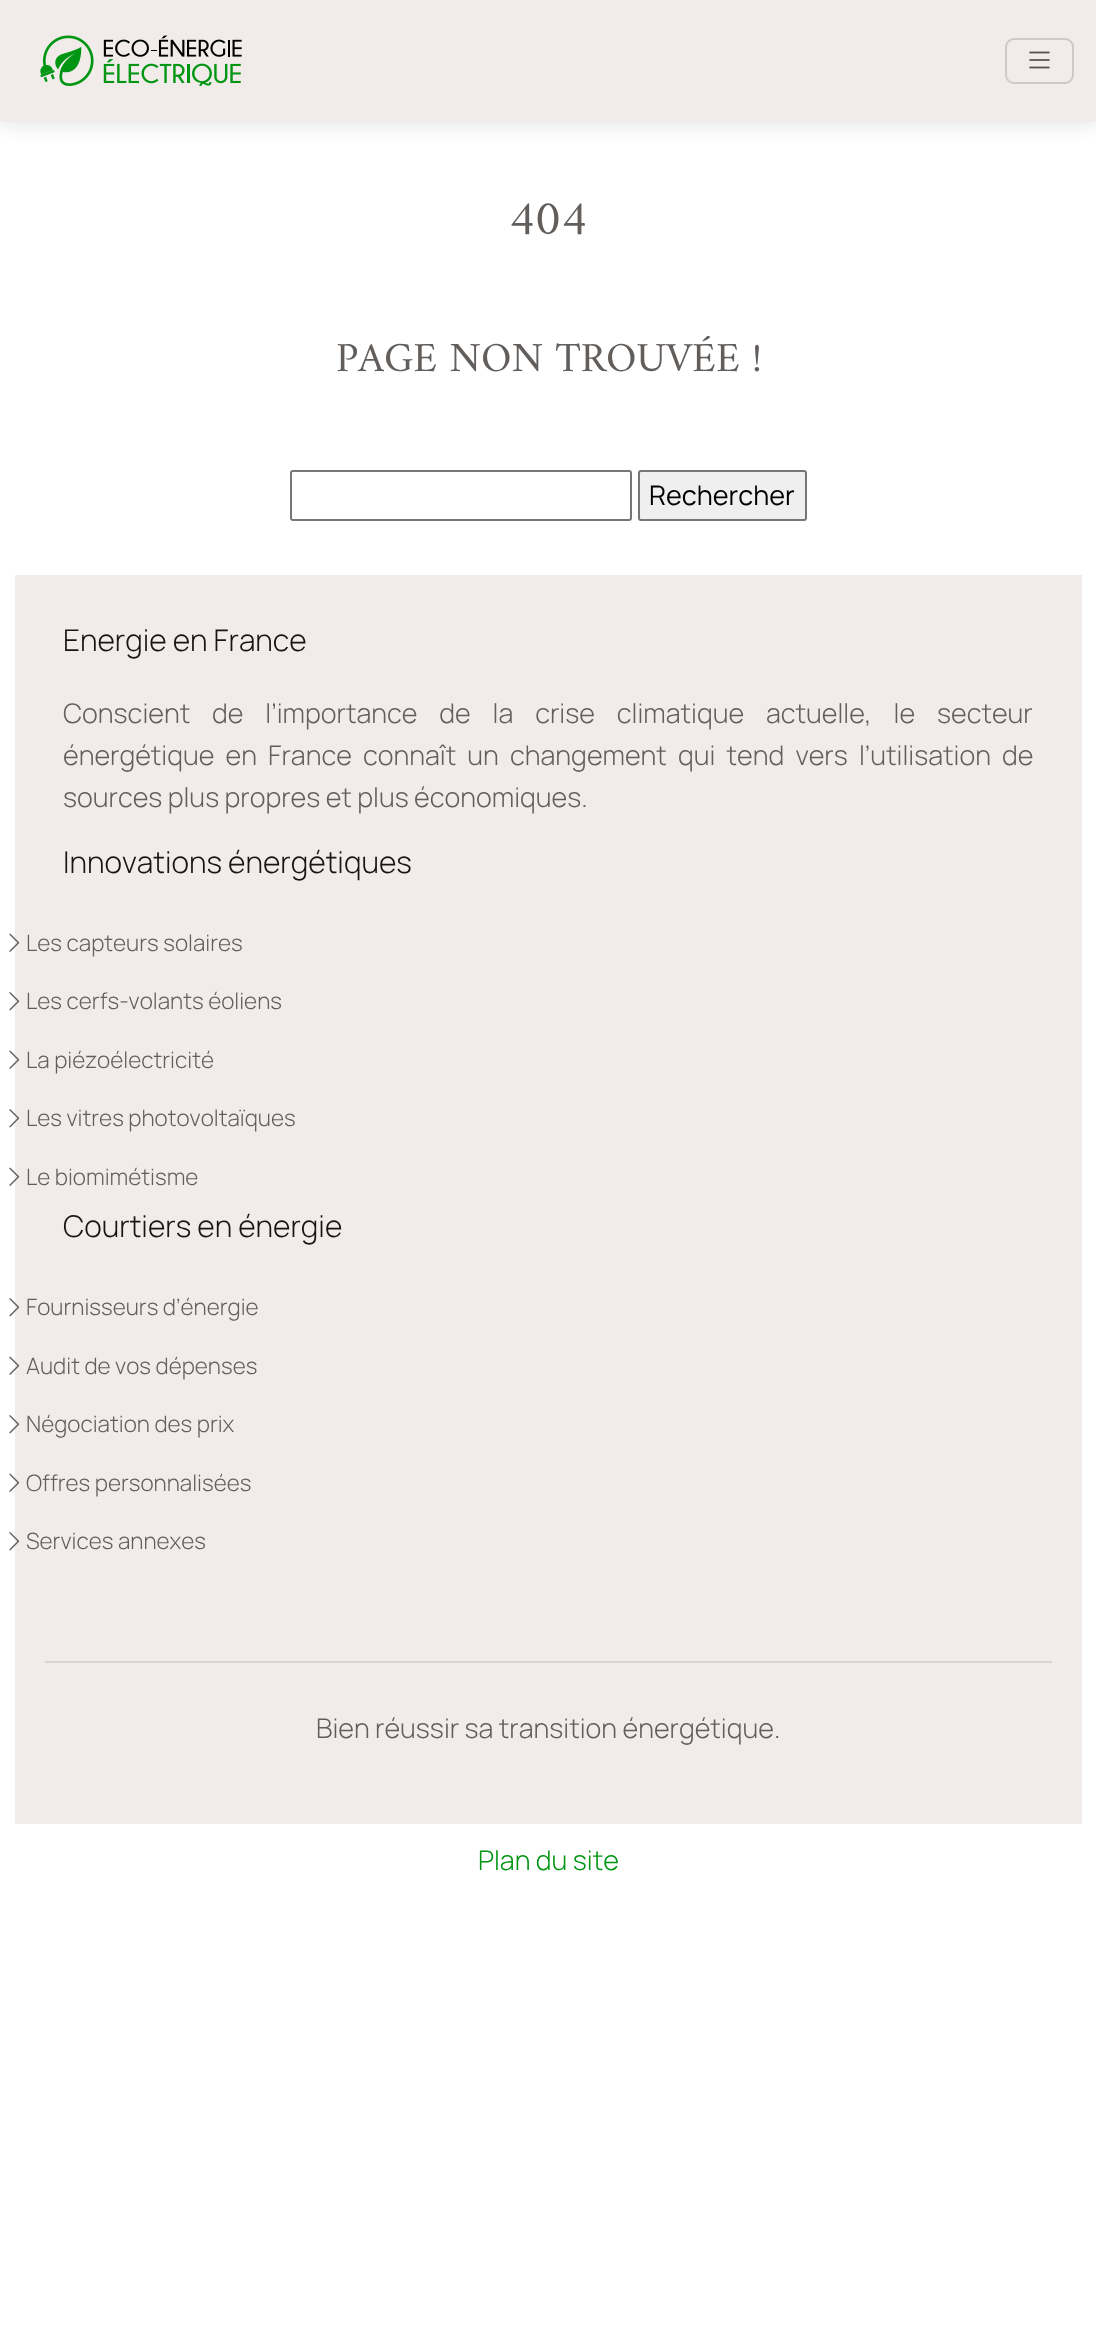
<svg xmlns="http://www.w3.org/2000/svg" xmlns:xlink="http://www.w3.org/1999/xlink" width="1096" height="2342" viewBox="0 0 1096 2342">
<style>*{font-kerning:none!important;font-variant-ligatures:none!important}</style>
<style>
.cls-1{font:49px Amiri;fill:#625e5c}
.cls-2{font:41.75px Amiri;fill:#625e5c}
.cls-3{font:27px Manrope;fill:#000000}
.cls-4{font:300 30px Manrope;fill:#171412}
.cls-5{font:300 27px Manrope;fill:#625e5c}
.cls-6{font:300 22.5px Manrope;fill:#625e5c}
.cls-7{font:300 27px Manrope;fill:#009512}
</style>
<rect width="100%" height="100%" fill="#ffffff"/>
<rect fill="#000000" fill-opacity="0.1" filter="blur(10px)" x="0" y="3" width="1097" height="122"/>
<rect fill="#f1ece9" x="0" y="0" width="1096" height="122"/>
<image xlink:href="image0.png" x="40" y="35" width="202" height="51"/>
<rect fill="none" stroke="#cdc9c6" stroke-width="2" x="1006" y="39" width="67" height="44" rx="8"/>
<image xlink:href="image1.png" x="1029" y="51" width="21" height="18"/>
<rect fill="none" stroke="#767676" stroke-width="2" x="291" y="471" width="340" height="49" rx="2"/>
<rect fill="#efefef" stroke="#767676" stroke-width="2" x="639" y="471" width="167" height="49" rx="2"/>
<rect fill="#f1ece9" x="15" y="575" width="1067" height="1249"/>
<image xlink:href="image2.png" x="9" y="933" width="11" height="19"/>
<image xlink:href="image3.png" x="9" y="992" width="11" height="19"/>
<image xlink:href="image2.png" x="9" y="1050" width="11" height="19"/>
<image xlink:href="image3.png" x="9" y="1109" width="11" height="19"/>
<image xlink:href="image2.png" x="9" y="1167" width="11" height="19"/>
<image xlink:href="image3.png" x="9" y="1298" width="11" height="19"/>
<image xlink:href="image2.png" x="9" y="1356" width="11" height="19"/>
<image xlink:href="image3.png" x="9" y="1415" width="11" height="19"/>
<image xlink:href="image2.png" x="9" y="1473" width="11" height="19"/>
<image xlink:href="image3.png" x="9" y="1532" width="11" height="19"/>
<rect fill="#d9d4d2" x="45" y="1661" width="1007" height="2"/>
<text class="cls-1" x="509" y="234">404</text>
<text class="cls-2" x="336" y="371">PAGE NON TROUVÉE !</text>
<text class="cls-3" x="649" y="505">Rechercher</text>
<text class="cls-4" x="63" y="651">Energie en France</text>
<text class="cls-5"><tspan x="63" y="723" word-spacing="16.5">Conscient de l’importance de la crise climatique actuelle, le secteur</tspan><tspan x="63" y="765" word-spacing="5.75">énergétique en France connaît un changement qui tend vers</tspan></text>
<text class="cls-5" x="859" y="765" word-spacing="5.75">l’utilisation de</text>
<text class="cls-5" x="63" y="807">sources plus propres et plus économiques.</text>
<text class="cls-4" x="63" y="873">Innovations énergétiques</text>
<text class="cls-6" x="26" y="951">Les capteurs solaires</text>
<text class="cls-6" x="26" y="1009">Les cerfs-volants éoliens</text>
<text class="cls-6" x="26" y="1068">La piézoélectricité</text>
<text class="cls-6" x="26" y="1126">Les vitres photovoltaïques</text>
<text class="cls-6" x="26" y="1185">Le biomimétisme</text>
<text class="cls-4" x="63" y="1237">Courtiers en énergie</text>
<text class="cls-6" x="26" y="1315">Fournisseurs d’énergie</text>
<text class="cls-6" x="26" y="1374">Audit de vos dépenses</text>
<text class="cls-6" x="26" y="1432">Négociation des prix</text>
<text class="cls-6" x="26" y="1491">Offres personnalisées</text>
<text class="cls-6" x="26" y="1549">Services annexes</text>
<text class="cls-5" x="316" y="1738">Bien réussir sa transition énergétique.</text>
<text class="cls-7" x="478" y="1870">Plan du site</text>
</svg>
